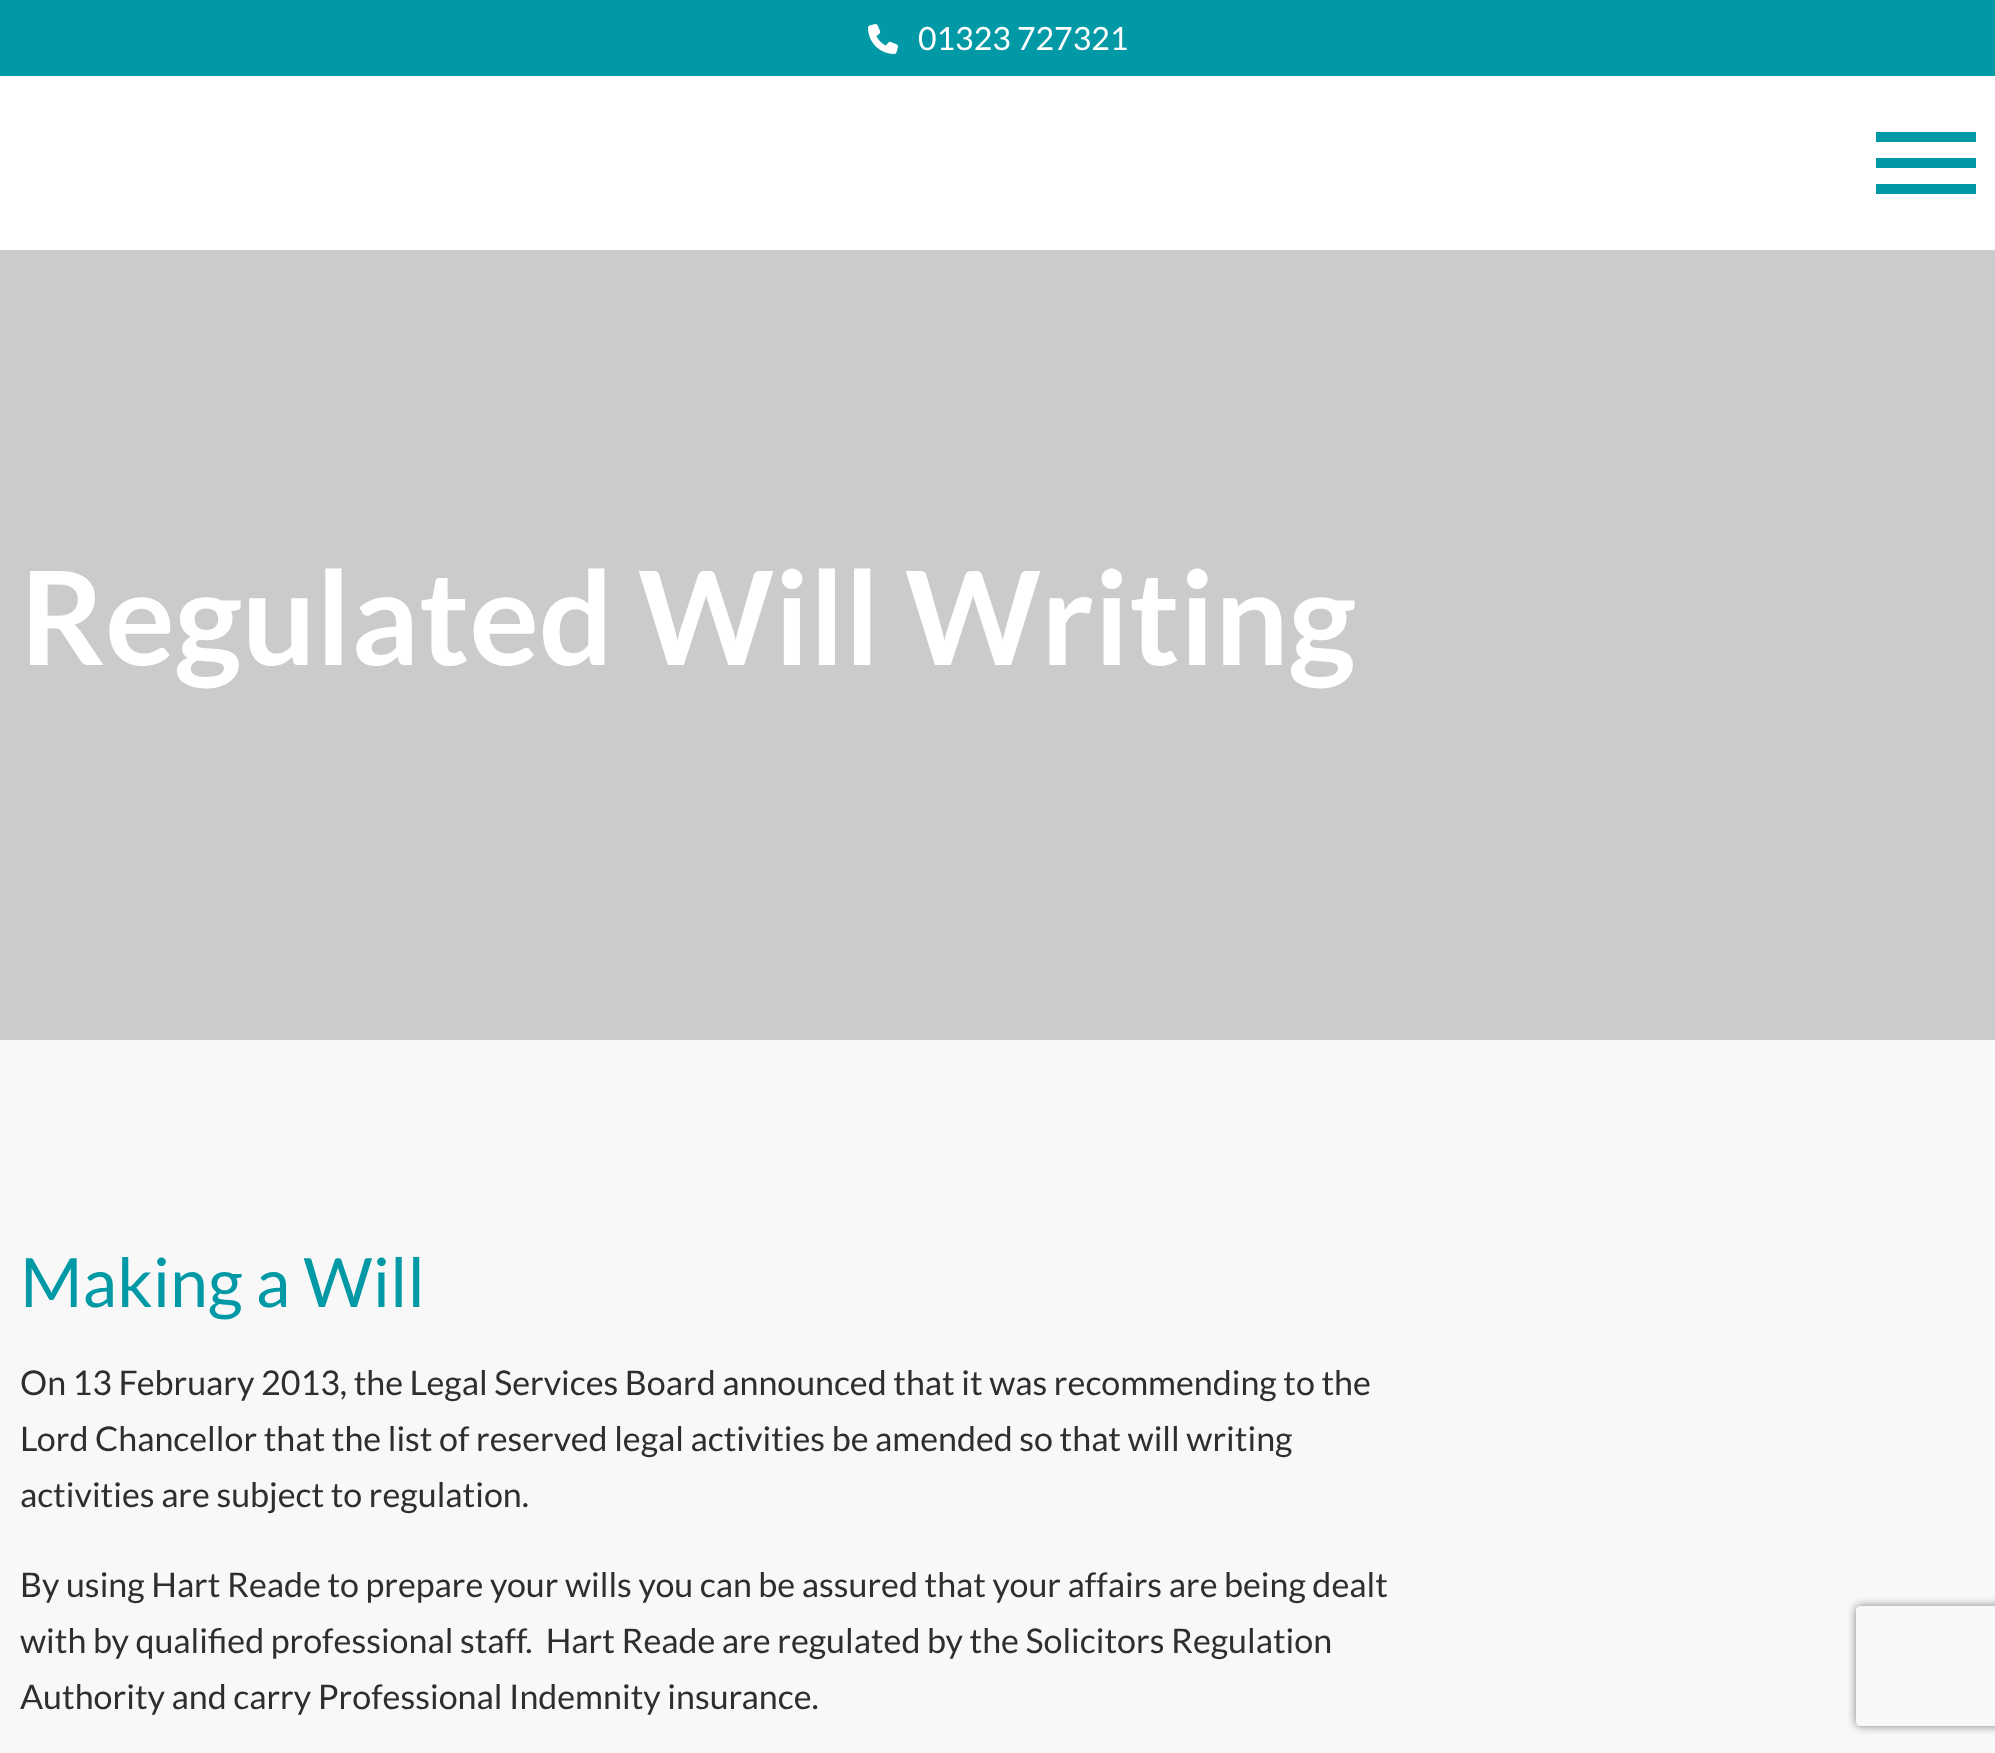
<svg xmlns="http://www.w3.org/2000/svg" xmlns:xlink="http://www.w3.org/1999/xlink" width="1995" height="1753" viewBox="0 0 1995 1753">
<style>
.cls-1{font:32px Lato;fill:#ffffff}
.cls-2{font:bold 130px Lato;fill:#ffffff}
.cls-3{font:68px Lato;fill:#0099a5}
.cls-4{font:34px Lato;fill:#2e2e2e}
</style>
<defs>
<clipPath id="clip1"><path d="M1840 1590H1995V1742H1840ZM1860 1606H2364C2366 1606 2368 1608 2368 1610V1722C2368 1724 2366 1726 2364 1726H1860C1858 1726 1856 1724 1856 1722V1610C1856 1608 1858 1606 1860 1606Z" clip-rule="evenodd"/></clipPath>
</defs>
<rect width="100%" height="100%" fill="#f8f8f8"/>
<rect fill="#0099a5" x="0" y="0" width="1995" height="76"/>
<image xlink:href="image0.png" x="868" y="24" width="30" height="30"/>
<rect fill="#ffffff" x="0" y="76" width="1995" height="174"/>
<rect fill="#0099a5" x="1876" y="132" width="100" height="10"/>
<rect fill="#0099a5" x="1876" y="158" width="100" height="10"/>
<rect fill="#0099a5" x="1876" y="184" width="100" height="10"/>
<rect fill="#cbcbcb" x="0" y="250" width="1995" height="790"/>
<g clip-path="url(#clip1)">
<rect fill="#808080" filter="blur(5px)" x="1856" y="1606" width="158" height="120" rx="4"/>
</g>
<text class="cls-1" x="918" y="50">01323 727321</text>
<text class="cls-2" x="20" y="665">Regulated Will Writing</text>
<text class="cls-3" x="20" y="1307">Making a Will</text>
<text class="cls-4"><tspan x="20" y="1395">On 13 February 2013, the Legal Services Board announced that it was recommending to the</tspan><tspan x="20" y="1451">Lord Chancellor that the list of reserved legal activities be amended so that will writing</tspan><tspan x="20" y="1507">activities are subject to regulation.</tspan></text>
<text class="cls-4" xml:space="preserve"><tspan x="20" y="1597">By using Hart Reade to prepare your wills you can be assured that your affairs are being dealt</tspan><tspan x="20" y="1653">with by qualified professional staff.  Hart Reade are regulated by the Solicitors Regulation</tspan><tspan x="20" y="1709">Authority and carry Professional Indemnity insurance.</tspan></text>
</svg>
